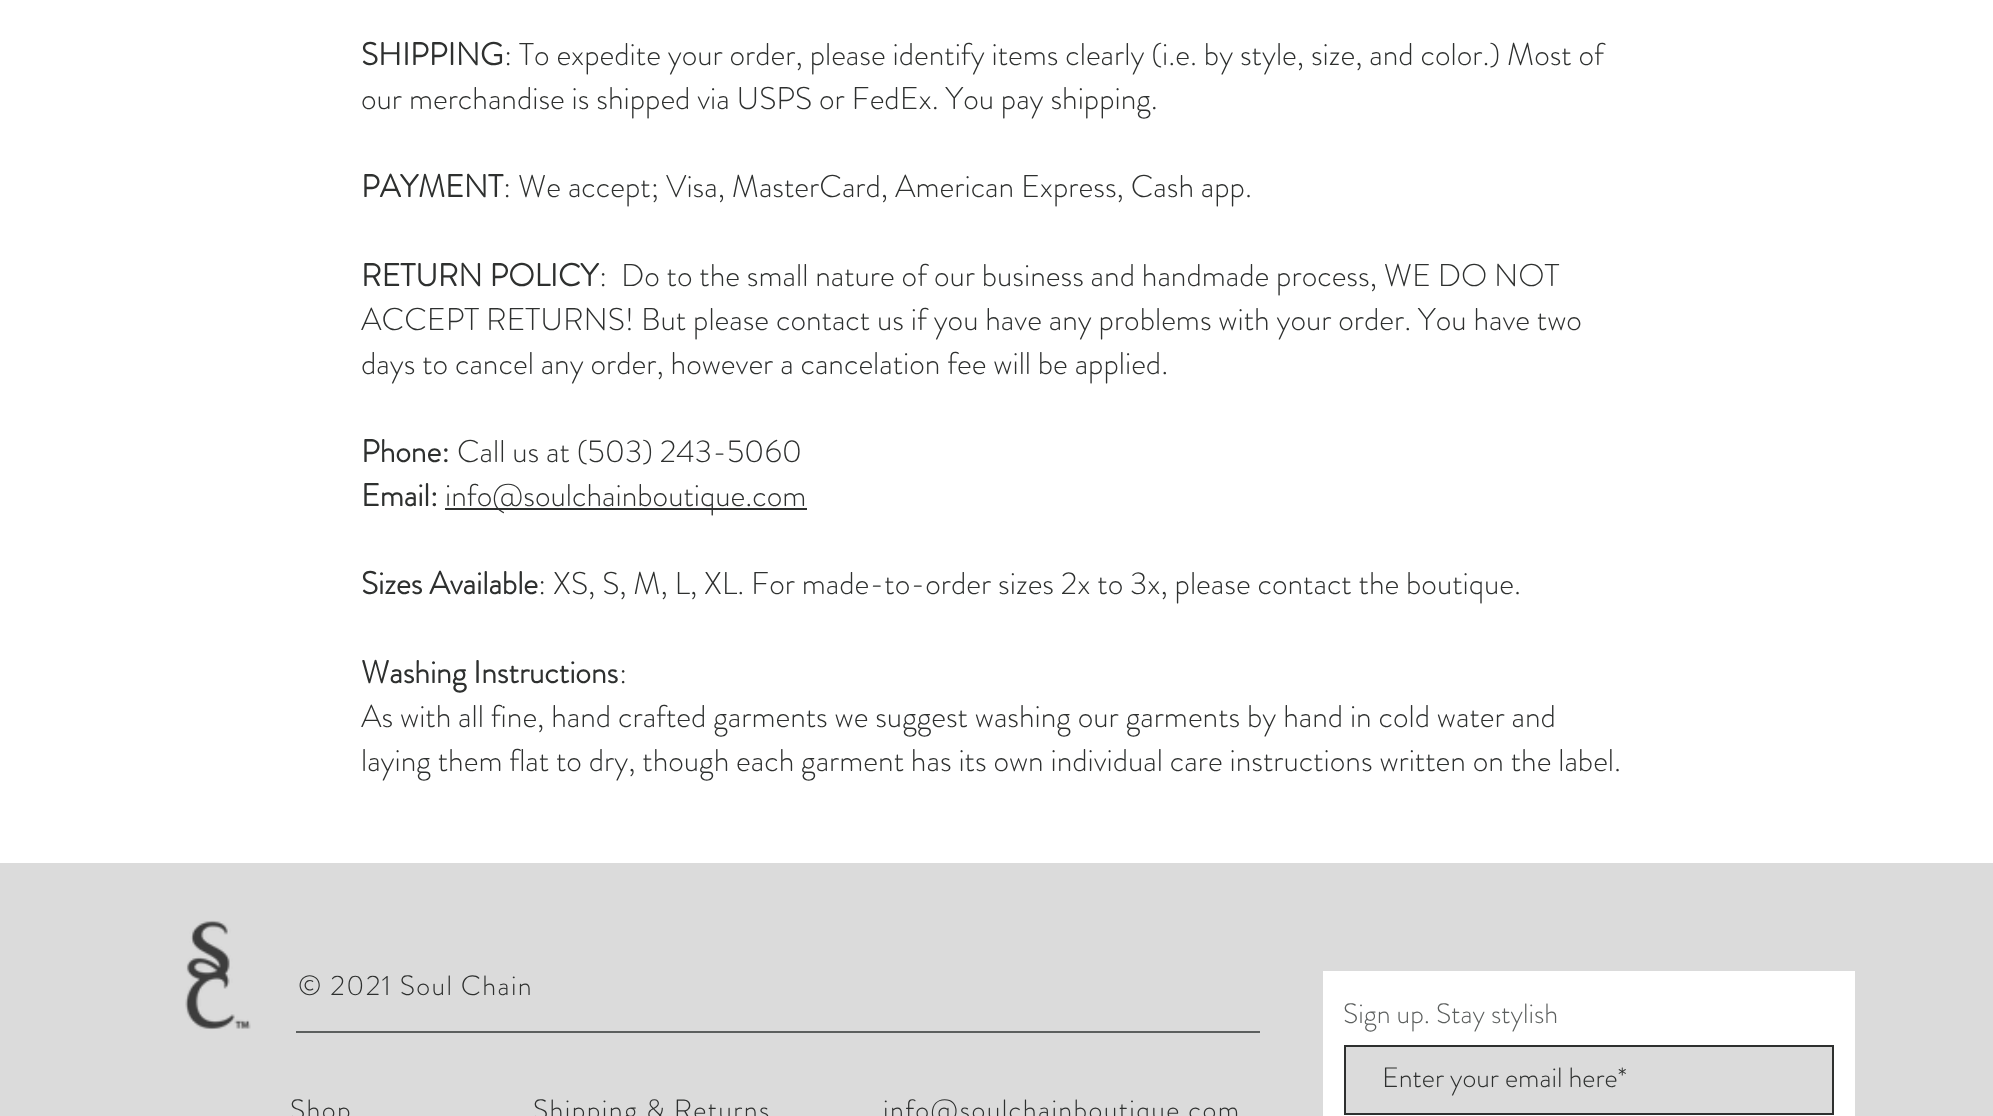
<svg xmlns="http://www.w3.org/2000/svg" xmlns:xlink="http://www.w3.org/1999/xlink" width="1993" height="1116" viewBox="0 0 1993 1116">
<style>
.cls-1{font:bold 31.5px 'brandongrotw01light';fill:#2e302f}
.cls-2{font:300 31.5px 'brandongrotw01light';fill:#2e302f}
.cls-3{font:300 28px 'brandongrotw01light';letter-spacing:1.4px;fill:#2e302f}
.cls-4{font:300 28px 'brandongrotw01light';fill:#5c5f5e}
.cls-5{font:300 28px 'brandongrotw01light';fill:#2e302f}
</style>
<rect width="100%" height="100%" fill="#ffffff"/>
<rect fill="#2e302f" x="445" y="508" width="362" height="2"/>
<rect fill="#dbdbdb" x="0" y="863" width="1993" height="253"/>
<image xlink:href="image0.png" x="185" y="920" width="66" height="110"/>
<rect fill="#5c5f5e" x="296" y="1031" width="964" height="2"/>
<rect fill="#ffffff" x="1323" y="971" width="532" height="145"/>
<rect fill="#dbdbdb" stroke="#2e302f" stroke-width="2" x="1345" y="1046" width="488" height="68"/>
<text class="cls-1" x="361" y="65">SHIPPING</text>
<text class="cls-2" x="504" y="65">: To expedite your order, please identify items clearly (i.e. by style, size, and color.) Most of</text>
<text class="cls-2" x="361" y="109">our merchandise is shipped via USPS or FedEx. You pay shipping.</text>
<text class="cls-1" x="361" y="197">PAYMENT</text>
<text class="cls-2" x="503" y="197">: We accept; Visa, MasterCard, American Express, Cash app.</text>
<text class="cls-1" x="361" y="286">RETURN POLICY</text>
<text class="cls-2" xml:space="preserve" x="599" y="286">:  Do to the small nature of our business and handmade process, WE DO NOT</text>
<text class="cls-2"><tspan x="361" y="330">ACCEPT RETURNS! But please contact us if you have any problems with your order. You have two</tspan><tspan x="361" y="374">days to cancel any order, however a cancelation fee will be applied.</tspan></text>
<text class="cls-1" x="361" y="462">Phone:</text>
<text class="cls-2" x="457" y="462">Call us at (503) 243-5060</text>
<text class="cls-1" x="361" y="506">Email:</text>
<text class="cls-2" x="445" y="506">info@soulchainboutique.com</text>
<text class="cls-1" x="361" y="594">Sizes Available</text>
<text class="cls-2" x="538" y="594">: XS, S, M, L, XL. For made-to-order sizes 2x to 3x, please contact the boutique.</text>
<text class="cls-1" x="361" y="683">Washing Instructions</text>
<text class="cls-2" x="619" y="683">:</text>
<text class="cls-2"><tspan x="361" y="727">As with all fine, hand crafted garments we suggest washing our garments by hand in cold water and</tspan><tspan x="361" y="771">laying them flat to dry, though each garment has its own individual care instructions written on the label.</tspan></text>
<text class="cls-3" x="298" y="995">© 2021 Soul Chain</text>
<text class="cls-4" x="1343" y="1023">Sign up. Stay stylish</text>
<text class="cls-5" x="1382" y="1087">Enter your email here*</text>
<text class="cls-3" x="290" y="1119">Shop</text>
<text class="cls-3" x="533" y="1119">Shipping &amp; Returns</text>
<text class="cls-3" x="883" y="1119">info@soulchainboutique.com</text>
</svg>
